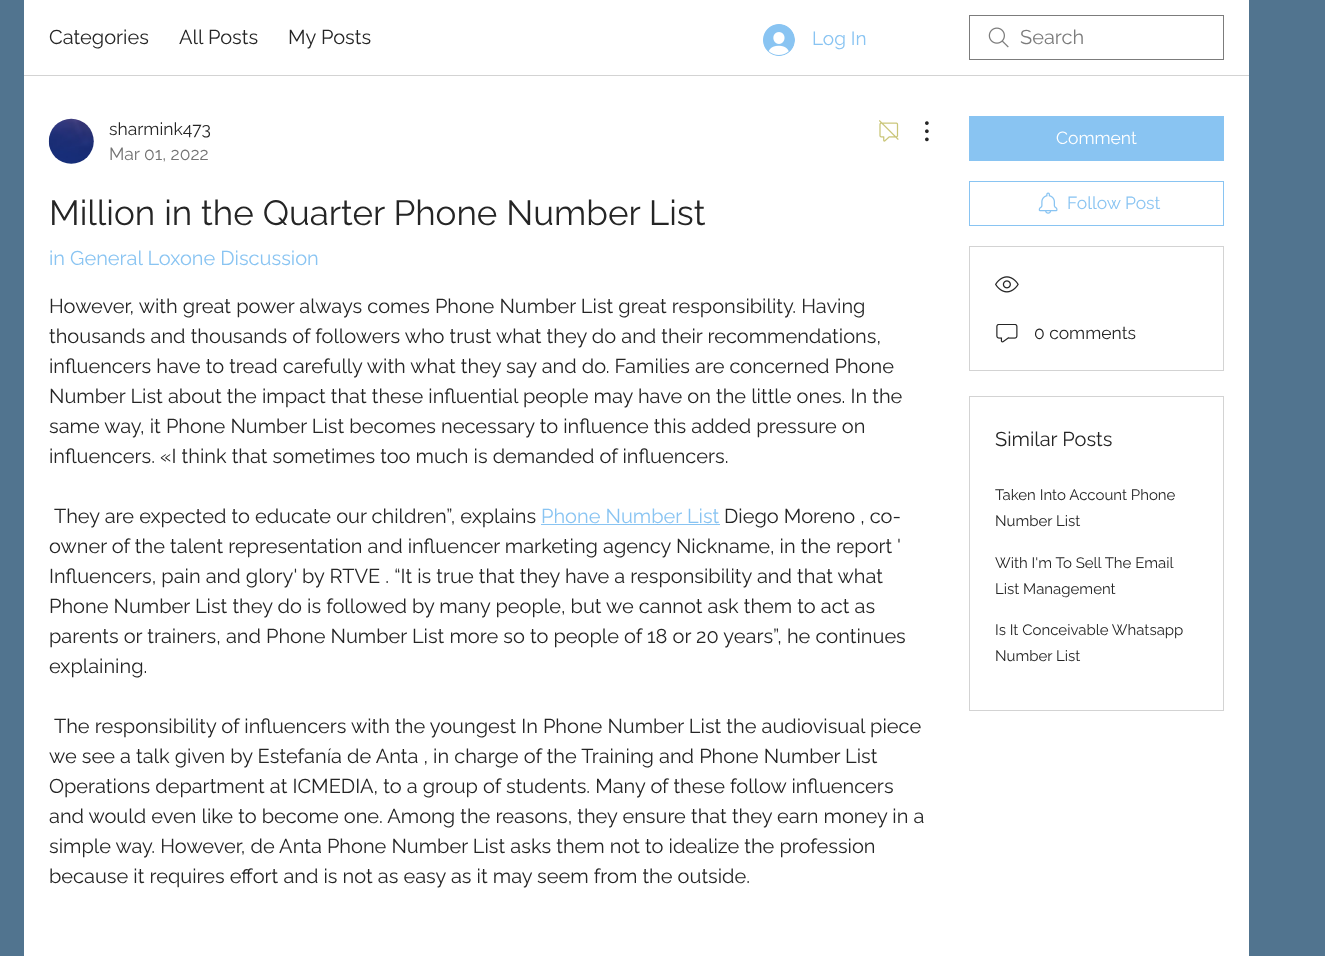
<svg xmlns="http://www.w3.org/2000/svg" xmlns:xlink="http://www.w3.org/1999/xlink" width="1325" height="956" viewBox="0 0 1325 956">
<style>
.cls-1{font:20px Raleway;fill:#252525}
.cls-2{font:20px Raleway;fill:#7c7c7c}
.cls-3{font:17.5px Raleway;fill:#252525}
.cls-4{font:17.5px Raleway;fill:#737373}
.cls-5{font:35px Raleway;fill:#252525}
.cls-6{font:20px Raleway;fill:#89c4f2}
.cls-7{font:17.5px Raleway;fill:#ffffff}
.cls-8{font:17.5px Raleway;fill:#89c4f2}
.cls-9{font:15px Raleway;fill:#252525}
.cls-10{font:19px Raleway;fill:#89c4f2}
</style>
<rect width="100%" height="100%" fill="#51748f"/>
<rect fill="#ffffff" x="24" y="0" width="1225" height="956"/>
<rect fill="#d3d3d3" x="24" y="75" width="1225" height="1"/>
<image xlink:href="image0.png" x="988" y="27" width="21" height="21"/>
<rect fill="none" stroke="#7c7c7c" x="969.5" y="15.5" width="254" height="44"/>
<image xlink:href="image1.png" x="48" y="118" width="46" height="46"/>
<image xlink:href="image2.png" x="879" y="120" width="20" height="22"/>
<image xlink:href="image3.png" x="925" y="121" width="4" height="21"/>
<rect fill="#89c4f2" x="541" y="524" width="179" height="1"/>
<rect fill="#89c4f2" x="969" y="116" width="255" height="45"/>
<rect fill="none" stroke="#89c4f2" x="969.5" y="181.5" width="254" height="44"/>
<image xlink:href="image4.png" x="1038" y="192" width="20" height="22"/>
<rect fill="none" stroke="#d3d3d3" x="969.5" y="246.5" width="254" height="124"/>
<image xlink:href="image5.png" x="995" y="276" width="24" height="17"/>
<image xlink:href="image6.png" x="996" y="324" width="22" height="19"/>
<rect fill="none" stroke="#d3d3d3" x="969.5" y="396.5" width="254" height="314"/>
<image xlink:href="image7.png" x="763" y="24" width="32" height="32"/>
<text class="cls-1" x="49" y="44">Categories</text>
<text class="cls-1" x="179" y="44">All Posts</text>
<text class="cls-1" x="288" y="44">My Posts</text>
<text class="cls-2" x="1020" y="44">Search</text>
<text class="cls-3" x="109" y="135">sharmink473</text>
<text class="cls-4" x="109" y="160">Mar 01, 2022</text>
<text class="cls-5" x="49" y="225">Million in the Quarter Phone Number List</text>
<text class="cls-6" x="49" y="265">in General Loxone Discussion</text>
<text class="cls-1"><tspan x="49" y="313">However, with great power always comes Phone Number List great responsibility. Having</tspan><tspan x="49" y="343">thousands and thousands of followers who trust what they do and their recommendations,</tspan><tspan x="49" y="373">influencers have to tread carefully with what they say and do. Families are concerned Phone</tspan><tspan x="49" y="403">Number List about the impact that these influential people may have on the little ones. In the</tspan><tspan x="49" y="433">same way, it Phone Number List becomes necessary to influence this added pressure on</tspan><tspan x="49" y="463">influencers. «I think that sometimes too much is demanded of influencers.</tspan></text>
<text class="cls-1" x="54" y="523">They are expected to educate our children”, explains</text>
<text class="cls-6" x="541" y="523">Phone Number List</text>
<text class="cls-1" x="724" y="523">Diego Moreno , co-</text>
<text class="cls-1"><tspan x="49" y="553">owner of the talent representation and influencer marketing agency Nickname, in the report '</tspan><tspan x="49" y="583">Influencers, pain and glory' by RTVE . “It is true that they have a responsibility and that what</tspan><tspan x="49" y="613">Phone Number List they do is followed by many people, but we cannot ask them to act as</tspan><tspan x="49" y="643">parents or trainers, and Phone Number List more so to people of 18 or 20 years”, he continues</tspan><tspan x="49" y="673">explaining.</tspan></text>
<text class="cls-1" x="54" y="733">The responsibility of influencers with the youngest In Phone Number List the audiovisual piece</text>
<text class="cls-1"><tspan x="49" y="763">we see a talk given by Estefanía de Anta , in charge of the Training and Phone Number List</tspan><tspan x="49" y="793">Operations department at ICMEDIA, to a group of students. Many of these follow influencers</tspan><tspan x="49" y="823">and would even like to become one. Among the reasons, they ensure that they earn money in a</tspan><tspan x="49" y="853">simple way. However, de Anta Phone Number List asks them not to idealize the profession</tspan><tspan x="49" y="883">because it requires effort and is not as easy as it may seem from the outside.</tspan></text>
<text class="cls-7" x="1056" y="144">Comment</text>
<text class="cls-8" x="1067" y="209">Follow Post</text>
<text class="cls-3" x="1034" y="339">0 comments</text>
<text class="cls-1" x="995" y="446">Similar Posts</text>
<text class="cls-9"><tspan x="995" y="500">Taken Into Account Phone</tspan><tspan x="995" y="526">Number List</tspan></text>
<text class="cls-9"><tspan x="995" y="568">With I'm To Sell The Email</tspan><tspan x="995" y="594">List Management</tspan></text>
<text class="cls-9"><tspan x="995" y="635">Is It Conceivable Whatsapp</tspan><tspan x="995" y="661">Number List</tspan></text>
<text class="cls-10" x="812" y="45">Log In</text>
</svg>
